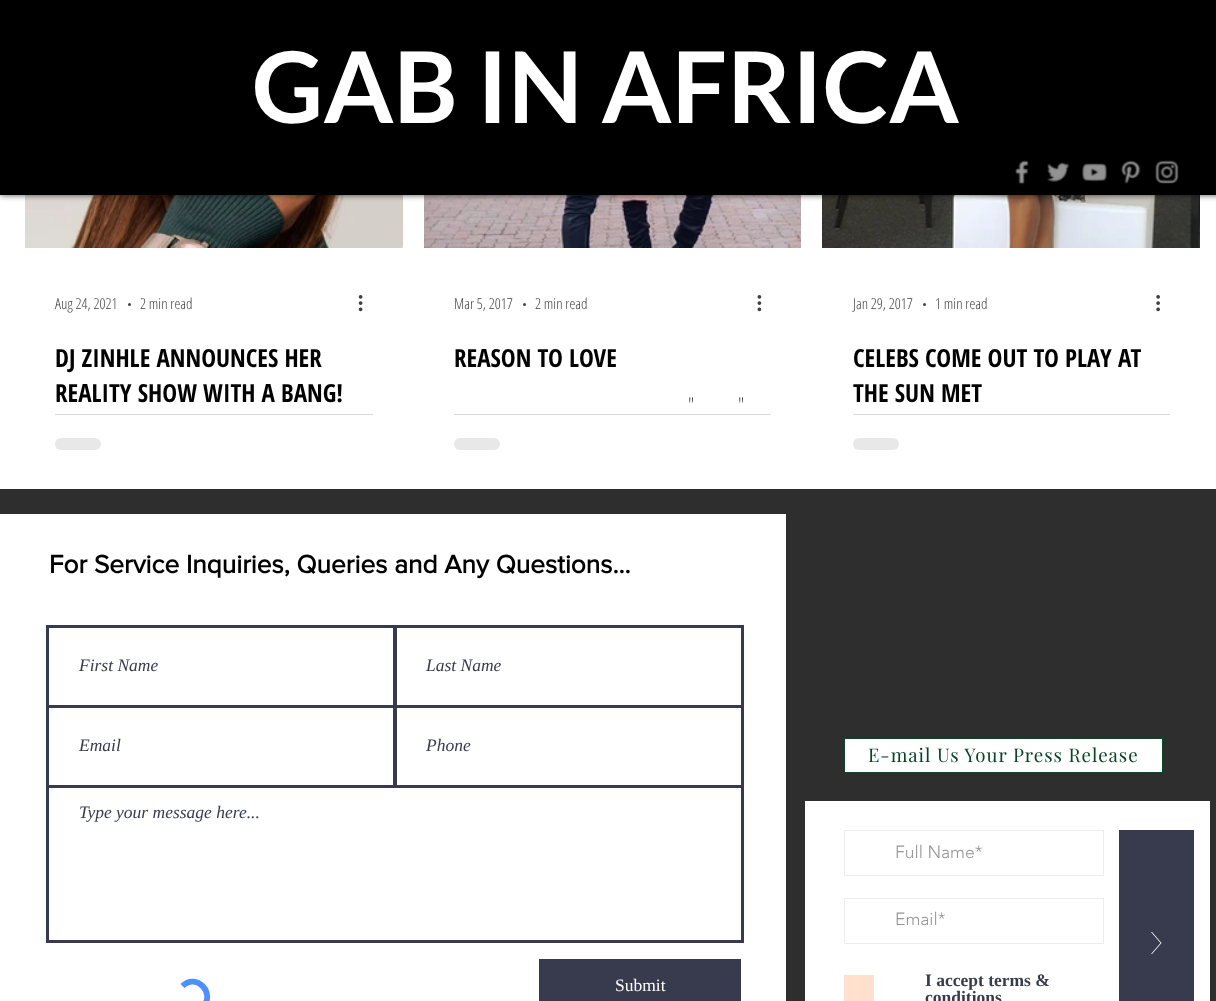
<svg xmlns="http://www.w3.org/2000/svg" xmlns:xlink="http://www.w3.org/1999/xlink" width="1216" height="1001" viewBox="0 0 1216 1001">
<style>
.cls-1{font:bold 98.75px Lato;fill:#ffffff}
.cls-2{font:300 15px Open Sans Condensed;fill:#414141}
.cls-3{font:bold 25px Open Sans Condensed;fill:#000000}
.cls-4{font:300 18.75px Open Sans Condensed;fill:#414141}
.cls-5{font:bold 26.25px 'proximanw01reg';fill:#000000}
.cls-6{font:italic 17.5px Liberation Serif;fill:#373b4d}
.cls-7{font:17.5px Liberation Serif;fill:#ffffff}
.cls-8{font:18.75px Playfair Display;letter-spacing:0.95px;fill:#0c4426}
.cls-9{font:300 17.5px 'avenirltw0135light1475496';fill:#969696}
.cls-10{font:bold 17.5px Liberation Serif;fill:#373b4d}
</style>
<defs>
<clipPath id="clip1"><rect x="853" y="341" width="317" height="62"/></clipPath>
</defs>
<rect width="100%" height="100%" fill="#ffffff"/>
<image xlink:href="image5.png" x="25" y="195" width="377" height="53"/>
<image xlink:href="image6.png" x="402" y="195" width="1" height="53"/>
<image xlink:href="image8.png" x="424" y="195" width="377" height="53"/>
<image xlink:href="image10.png" x="822" y="195" width="378" height="53"/>
<rect fill="#000000" fill-opacity="0.7" filter="blur(3px)" x="0" y="0" width="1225" height="195"/>
<rect fill="#000000" x="0" y="0" width="1216" height="195"/>
<image xlink:href="image0.png" x="1015" y="160" width="14" height="25"/>
<image xlink:href="image1.png" x="1047" y="162" width="23" height="20"/>
<image xlink:href="image2.png" x="1082" y="163" width="25" height="19"/>
<image xlink:href="image3.png" x="1120" y="160" width="21" height="24"/>
<image xlink:href="image4.png" x="1155" y="160" width="24" height="24"/>
<circle fill="#414141" cx="129.5" cy="304.5" r="1.5"/>
<image xlink:href="image7.png" x="358" y="295" width="5" height="17"/>
<rect fill="#d9d9d9" x="55" y="414" width="318" height="1"/>
<rect fill="#e8e8e8" x="55" y="438" width="46" height="12" rx="6"/>
<circle fill="#414141" cx="524.5" cy="304.5" r="1.5"/>
<image xlink:href="image9.png" x="757" y="295" width="5" height="17"/>
<rect fill="#d9d9d9" x="454" y="414" width="317" height="1"/>
<rect fill="#e8e8e8" x="454" y="438" width="46" height="12" rx="6"/>
<circle fill="#414141" cx="924.5" cy="304.5" r="1.5"/>
<image xlink:href="image11.png" x="1156" y="295" width="4" height="17"/>
<rect fill="#d9d9d9" x="853" y="414" width="317" height="1"/>
<rect fill="#e8e8e8" x="853" y="438" width="46" height="12" rx="6"/>
<rect fill="#2f2e2e" x="0" y="489" width="1216" height="512"/>
<rect fill="#ffffff" x="0" y="514" width="786" height="487"/>
<rect fill="none" stroke="#373b4d" stroke-width="3" x="47.5" y="626.5" width="347" height="80"/>
<rect fill="none" stroke="#373b4d" stroke-width="3" x="395.5" y="626.5" width="347" height="80"/>
<rect fill="none" stroke="#373b4d" stroke-width="3" x="47.5" y="706.5" width="347" height="80"/>
<rect fill="none" stroke="#373b4d" stroke-width="3" x="395.5" y="706.5" width="347" height="80"/>
<rect fill="none" stroke="#373b4d" stroke-width="3" x="47.5" y="786.5" width="695" height="155"/>
<path fill="none" stroke="#4d90fe" stroke-width="5.8" d="M182.5 986C196 972.5 216 993 203 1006.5"/>
<rect fill="#373b4d" x="539" y="959" width="202" height="42"/>
<rect fill="#ffffff" stroke="#0c4426" x="844.5" y="738.5" width="318" height="34"/>
<rect fill="#ffffff" x="805" y="801" width="405" height="200"/>
<rect fill="none" stroke="#ededed" x="844.5" y="830.5" width="259" height="45"/>
<rect fill="#373b4d" x="1119" y="830" width="75" height="171"/>
<path fill="#ffffff" d="M1161.5 943L1152 954H1151L1160.5 943L1151 932H1152Z"/>
<rect fill="none" stroke="#ededed" x="844.5" y="898.5" width="259" height="45"/>
<rect fill="#ffe0cc" x="844" y="975" width="30" height="26"/>
<text class="cls-1" x="252" y="123">GAB IN AFRICA</text>
<text class="cls-2" x="55" y="309">Aug 24, 2021</text>
<text class="cls-2" x="140" y="309">2 min read</text>
<text class="cls-3"><tspan x="55" y="367">DJ ZINHLE ANNOUNCES HER</tspan><tspan x="55" y="402">REALITY SHOW WITH A BANG!</tspan></text>
<text class="cls-2" x="454" y="309">Mar 5, 2017</text>
<text class="cls-2" x="535" y="309">2 min read</text>
<text class="cls-3" x="454" y="367">REASON TO LOVE</text>
<text class="cls-4" x="688" y="411">"</text>
<text class="cls-4" x="738" y="411">"</text>
<text class="cls-2" x="853" y="309">Jan 29, 2017</text>
<text class="cls-2" x="935" y="309">1 min read</text>
<text class="cls-3" x="853" y="367">CELEBS COME OUT TO PLAY AT</text>
<g clip-path="url(#clip1)">
<text class="cls-3" x="853" y="402">THE SUN MET</text>
</g>
<text class="cls-5" x="49" y="573">For Service Inquiries, Queries and Any Questions...</text>
<text class="cls-6" x="79" y="671">First Name</text>
<text class="cls-6" x="426" y="671">Last Name</text>
<text class="cls-6" x="79" y="751">Email</text>
<text class="cls-6" x="426" y="751">Phone</text>
<text class="cls-6" x="79" y="818">Type your message here...</text>
<text class="cls-7" x="615" y="991">Submit</text>
<text class="cls-8" x="868" y="762">E-mail Us Your Press Release</text>
<text class="cls-9" x="895" y="858">Full Name*</text>
<text class="cls-9" x="895" y="925">Email*</text>
<text class="cls-10"><tspan x="925" y="986">I accept terms &amp;</tspan><tspan x="925" y="1003">conditions</tspan></text>
</svg>
